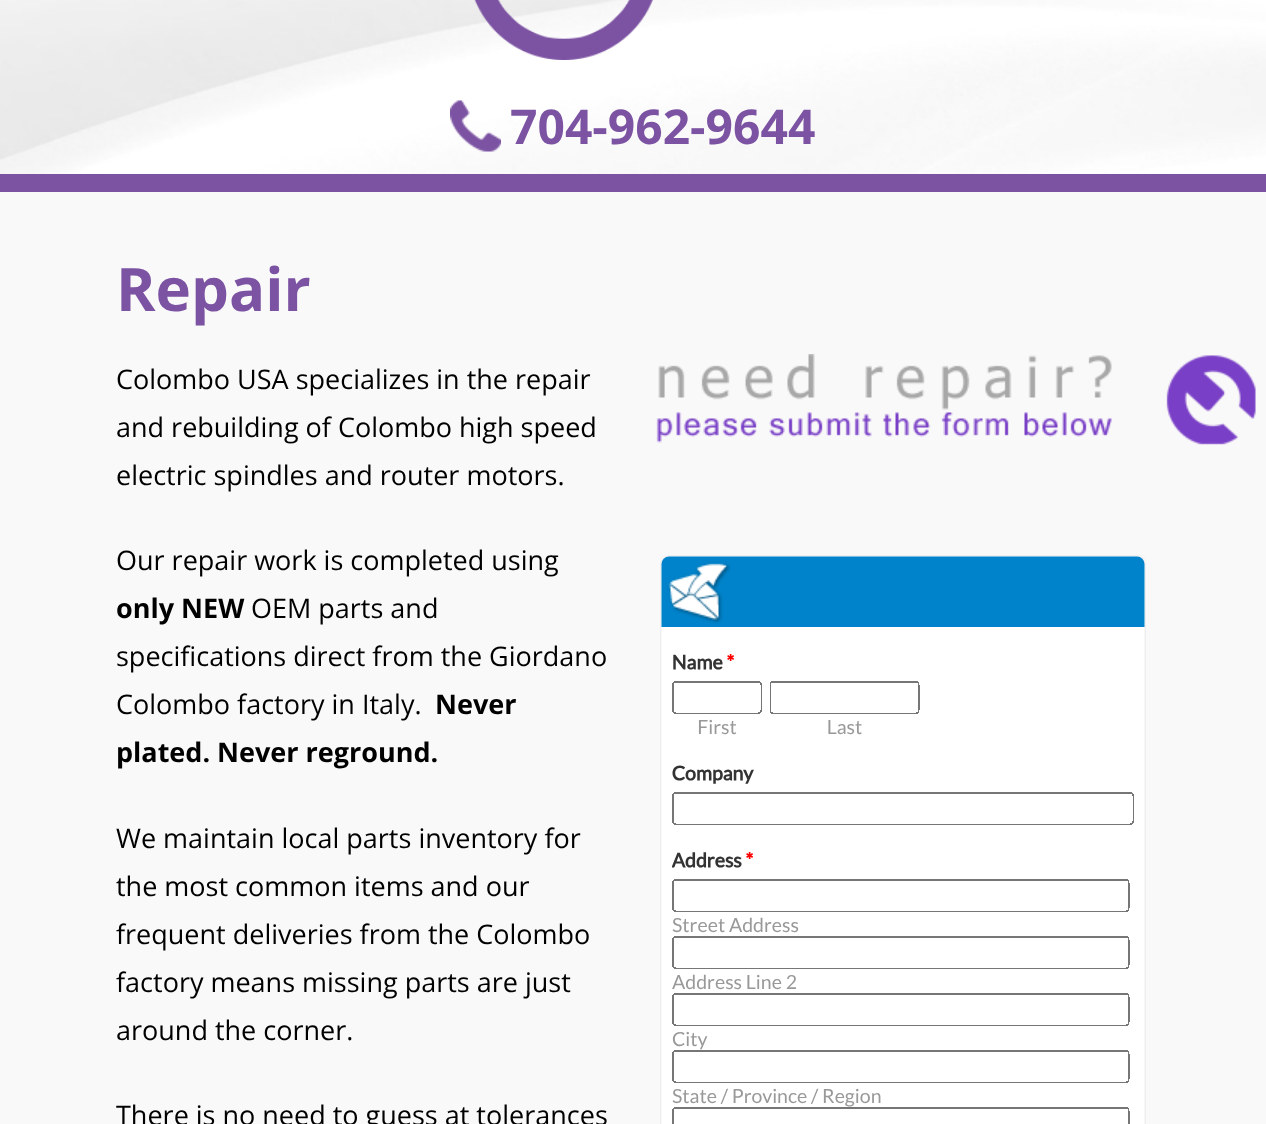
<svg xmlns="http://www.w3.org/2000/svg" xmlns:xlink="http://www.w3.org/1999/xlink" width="1266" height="1124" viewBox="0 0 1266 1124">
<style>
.cls-1{font:bold 48px Open Sans;fill:#7c53a2}
.cls-2{font:bold 60px Open Sans;fill:#7c53a2}
.cls-3{font:27px Open Sans;fill:#000000}
.cls-4{font:bold 27px Open Sans;fill:#000000}
</style>
<rect width="100%" height="100%" fill="#f9f9f9"/>
<image xlink:href="image0.png" x="0" y="0" width="1266" height="174"/>
<image xlink:href="image1.png" x="474" y="0" width="179" height="60"/>
<image xlink:href="image2.png" x="450" y="100" width="51" height="52"/>
<rect fill="#7c53a2" x="0" y="174" width="1266" height="18"/>
<image xlink:href="image3.png" x="656" y="354" width="600" height="91"/>
<image xlink:href="image4.png" x="660" y="555" width="486" height="569"/>
<text class="cls-1" x="510" y="144">704-962-9644</text>
<text class="cls-2" x="116" y="311">Repair</text>
<text class="cls-3"><tspan x="116" y="389">Colombo USA specializes in the repair</tspan><tspan x="116" y="437">and rebuilding of Colombo high speed</tspan><tspan x="116" y="485">electric spindles and router motors.</tspan></text>
<text class="cls-3" x="116" y="570">Our repair work is completed using</text>
<text class="cls-4" x="116" y="618">only NEW</text>
<text class="cls-3" x="251" y="618">OEM parts and</text>
<text class="cls-3"><tspan x="116" y="666">specifications direct from the Giordano</tspan><tspan x="116" y="714">Colombo factory in Italy.</tspan></text>
<text class="cls-4" x="435" y="714">Never</text>
<text class="cls-4" x="116" y="762">plated. Never reground.</text>
<text class="cls-3"><tspan x="116" y="848">We maintain local parts inventory for</tspan><tspan x="116" y="896">the most common items and our</tspan><tspan x="116" y="944">frequent deliveries from the Colombo</tspan><tspan x="116" y="992">factory means missing parts are just</tspan><tspan x="116" y="1040">around the corner.</tspan></text>
<text class="cls-3" x="116" y="1125">There is no need to guess at tolerances</text>
</svg>
